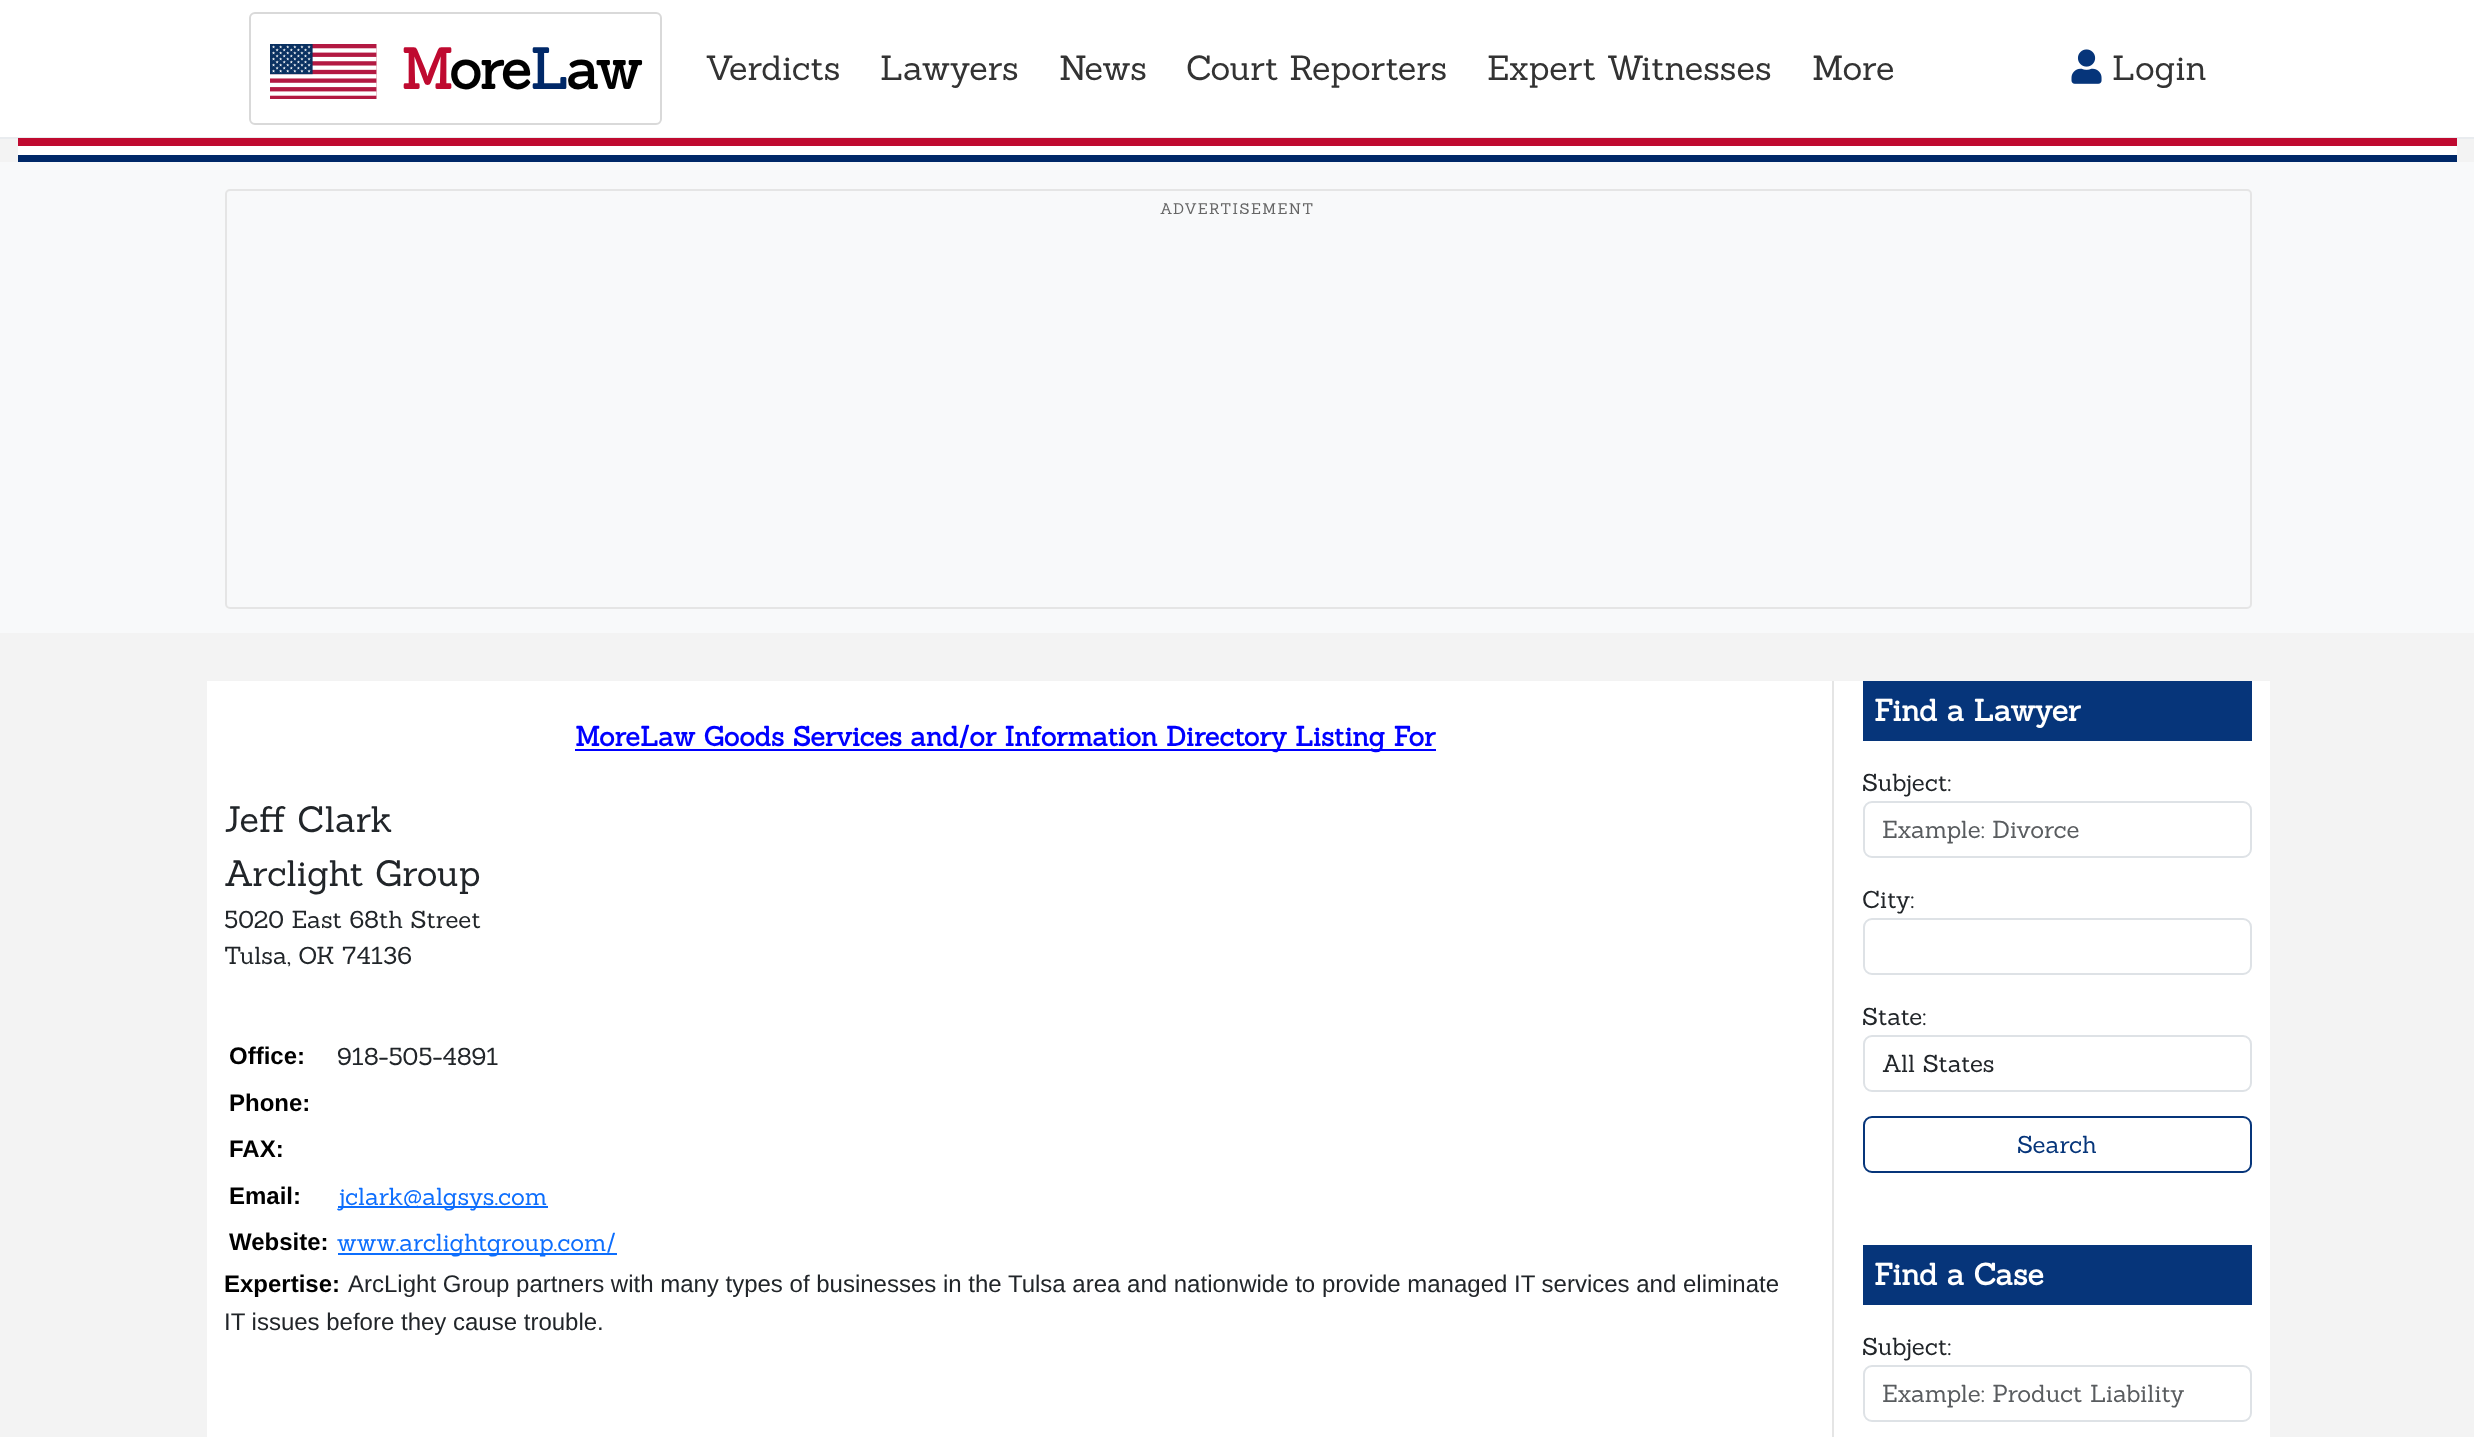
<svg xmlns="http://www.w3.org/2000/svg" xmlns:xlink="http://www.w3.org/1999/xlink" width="2474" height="1437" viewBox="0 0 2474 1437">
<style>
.cls-1{font:bold 56px Sanchez;letter-spacing:-1.5px;fill:#bf0a30}
.cls-2{font:bold 56px Sanchez;letter-spacing:-1.5px;fill:#000000}
.cls-3{font:bold 56px Sanchez;letter-spacing:-1.5px;fill:#002868}
.cls-4{font:34.25px Sanchez;fill:#333333}
.cls-5{font:15px Sanchez;letter-spacing:1.5px;fill:#666666}
.cls-6{font:bold 27px Sanchez;fill:#0000ff}
.cls-7{font:36px Sanchez;fill:#212529}
.cls-8{font:24px Sanchez;fill:#212529}
.cls-9{font:bold 24px Liberation Sans;fill:#000000}
.cls-10{font:24px Sanchez;fill:#0d6efd}
.cls-11{font:24px Liberation Sans;fill:#212529}
.cls-12{font:bold 30px Sanchez;fill:#ffffff}
.cls-13{font:24px Sanchez;fill:#595c5f}
.cls-14{font:24px Sanchez;fill:#06357a}
</style>
<defs>
<clipPath id="clip1"><rect x="1883" y="815" width="349" height="30"/></clipPath>
<clipPath id="clip2"><rect x="1883" y="1379" width="349" height="30"/></clipPath>
</defs>
<rect width="100%" height="100%" fill="#f3f3f3"/>
<rect fill="#ffffff" x="0" y="0" width="2474" height="137"/>
<rect fill="#e9ecef" x="0" y="137" width="2474" height="2"/>
<rect fill="none" stroke="#d9d9d9" stroke-width="2" x="250" y="13" width="411" height="111" rx="5"/>
<image xlink:href="image0.png" x="270" y="44" width="107" height="55"/>
<image xlink:href="image1.png" x="2071" y="49" width="31" height="35"/>
<rect fill="#bf0a30" x="18" y="138" width="2439" height="8"/>
<rect fill="#ffffff" x="18" y="146" width="2439" height="9"/>
<rect fill="#002868" x="18" y="155" width="2439" height="7"/>
<rect fill="#f8f9fa" x="0" y="162" width="2474" height="471"/>
<rect fill="none" stroke="#e5e5e5" stroke-width="2" x="226" y="190" width="2025" height="418" rx="4"/>
<rect fill="#ffffff" x="207" y="681" width="2063" height="756"/>
<rect fill="#0000ff" x="575" y="749" width="861" height="2"/>
<rect fill="#0d6efd" x="338" y="1206" width="210" height="2"/>
<rect fill="#0d6efd" x="338" y="1253" width="279" height="2"/>
<rect fill="#e5e5e5" x="1832" y="681" width="2" height="756"/>
<rect fill="#06357a" x="1863" y="681" width="389" height="60"/>
<rect fill="none" stroke="#dee2e6" stroke-width="2" x="1864" y="802" width="387" height="55" rx="8"/>
<rect fill="none" stroke="#dee2e6" stroke-width="2" x="1864" y="919" width="387" height="55" rx="8"/>
<rect fill="none" stroke="#dee2e6" stroke-width="2" x="1864" y="1036" width="387" height="55" rx="8"/>
<rect fill="none" stroke="#06357a" stroke-width="2" x="1864" y="1117" width="387" height="55" rx="8"/>
<rect fill="#06357a" x="1863" y="1245" width="389" height="60"/>
<rect fill="none" stroke="#dee2e6" stroke-width="2" x="1864" y="1366" width="387" height="55" rx="8"/>
<text class="cls-1" x="401" y="89">M</text>
<text class="cls-2" x="449" y="89">ore</text>
<text class="cls-3" x="530" y="89">L</text>
<text class="cls-2" x="566" y="89">aw</text>
<text class="cls-4" x="705" y="80">Verdicts</text>
<text class="cls-4" x="880" y="80">Lawyers</text>
<text class="cls-4" x="1059" y="80">News</text>
<text class="cls-4" x="1186" y="80">Court Reporters</text>
<text class="cls-4" x="1487" y="80">Expert Witnesses</text>
<text class="cls-4" x="1812" y="80">More</text>
<text class="cls-4" x="2112" y="80">Login</text>
<text class="cls-5" x="1160" y="214">ADVERTISEMENT</text>
<text class="cls-6" x="575" y="746">MoreLaw Goods Services and/or Information Directory Listing For</text>
<text class="cls-7"><tspan x="224" y="832">Jeff Clark</tspan><tspan x="224" y="886">Arclight Group</tspan></text>
<text class="cls-8"><tspan x="224" y="928">5020 East 68th Street</tspan><tspan x="224" y="964">Tulsa, OK 74136</tspan></text>
<text class="cls-9" x="229" y="1064">Office:</text>
<text class="cls-8" x="337" y="1065">918-505-4891</text>
<text class="cls-9"><tspan x="229" y="1111">Phone:</tspan><tspan x="229" y="1157">FAX:</tspan><tspan x="229" y="1204">Email:</tspan></text>
<text class="cls-10" x="337" y="1205">jclark@algsys.com</text>
<text class="cls-9" x="229" y="1250">Website:</text>
<text class="cls-10" x="337" y="1251">www.arclightgroup.com/</text>
<text class="cls-9" x="224" y="1292">Expertise:</text>
<text class="cls-11" x="348" y="1292">ArcLight Group partners with many types of businesses in the Tulsa area and nationwide to provide managed IT services and eliminate</text>
<text class="cls-11" x="224" y="1330">IT issues before they cause trouble.</text>
<text class="cls-12" x="1874" y="721">Find a Lawyer</text>
<text class="cls-8" x="1862" y="791">Subject:</text>
<g clip-path="url(#clip1)">
<text class="cls-13" x="1882" y="838">Example: Divorce</text>
</g>
<text class="cls-8" x="1862" y="908">City:</text>
<text class="cls-8" x="1862" y="1025">State:</text>
<text class="cls-8" x="1882" y="1072">All States</text>
<text class="cls-14" x="2017" y="1153">Search</text>
<text class="cls-12" x="1874" y="1285">Find a Case</text>
<text class="cls-8" x="1862" y="1355">Subject:</text>
<g clip-path="url(#clip2)">
<text class="cls-13" x="1882" y="1402">Example: Product Liability</text>
</g>
</svg>
